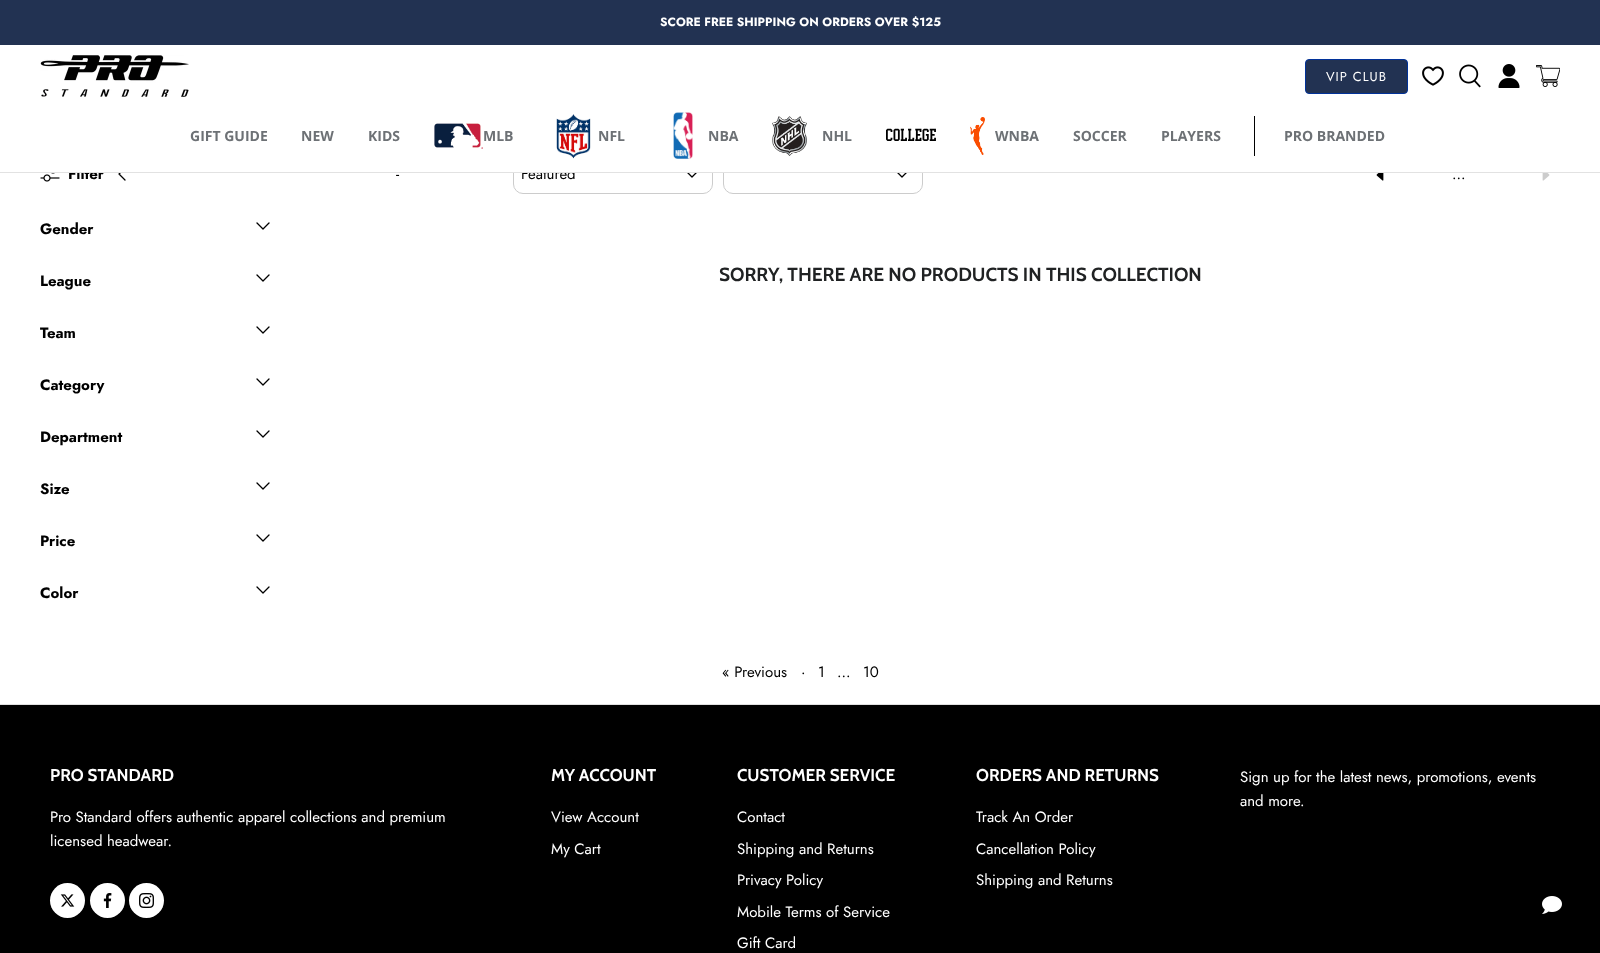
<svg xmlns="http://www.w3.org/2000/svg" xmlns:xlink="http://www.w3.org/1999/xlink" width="1600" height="953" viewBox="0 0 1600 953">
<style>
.cls-1{font:bold 12px Jost;fill:#ffffff}
.cls-2{font:13px Jost;letter-spacing:1px;fill:#ffffff}
.cls-3{font:bold 14px Open Sans;fill:#6d7175}
.cls-4{font:14px 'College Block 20';fill:#000000}
.cls-5{font:bold 15px Jost;fill:#000000}
.cls-6{font:15px Jost;fill:#000000}
.cls-7{font:bold 19px Cabin;fill:#202223}
.cls-8{font:bold 17px Cabin;fill:#ffffff}
.cls-9{font:15px Jost;fill:#ffffff}
</style>
<rect width="100%" height="100%" fill="#ffffff"/>
<rect fill="#223252" x="0" y="0" width="1600" height="45"/>
<image xlink:href="image0.png" x="40" y="55" width="149" height="42"/>
<rect fill="#223252" stroke="#013299" x="1305.5" y="59.5" width="102" height="34" rx="3.5"/>
<image xlink:href="image1.png" x="1422" y="66" width="22" height="20"/>
<image xlink:href="image2.png" x="1459" y="64" width="22" height="24"/>
<image xlink:href="image3.png" x="1498" y="64" width="22" height="24"/>
<image xlink:href="image4.png" x="1536" y="65" width="24" height="22"/>
<image xlink:href="image5.png" x="434" y="123" width="49" height="26"/>
<image xlink:href="image9.png" x="970" y="117" width="15" height="38"/>
<rect fill="#000000" x="1254" y="116" width="1" height="40"/>
<image xlink:href="image10.png" x="40" y="173" width="20" height="9"/>
<path fill="none" stroke="#000000" stroke-width="1.3" stroke-linecap="round" stroke-linejoin="round" d="M125 168L119 174L125 180"/>
<rect fill="none" stroke="#cccccc" x="513.5" y="154.5" width="199" height="39" rx="9.5"/>
<path fill="none" stroke="#000000" stroke-width="1.3" stroke-linecap="round" stroke-linejoin="round" d="M686 171L692 177L698 171"/>
<rect fill="none" stroke="#cccccc" x="723.5" y="154.5" width="199" height="39" rx="9.5"/>
<path fill="none" stroke="#000000" stroke-width="1.3" stroke-linecap="round" stroke-linejoin="round" d="M896 171L902 177L908 171"/>
<image xlink:href="image11.png" x="1376" y="173" width="8" height="8"/>
<image xlink:href="image12.png" x="1542" y="173" width="8" height="8"/>
<path fill="none" stroke="#000000" stroke-width="1.3" stroke-linecap="round" stroke-linejoin="round" d="M257 223L263 229L269 223M257 275L263 281L269 275"/>
<path fill="none" stroke="#000000" stroke-width="1.3" stroke-linecap="round" stroke-linejoin="round" d="M257 327L263 333L269 327M257 379L263 385L269 379"/>
<path fill="none" stroke="#000000" stroke-width="1.3" stroke-linecap="round" stroke-linejoin="round" d="M257 431L263 437L269 431M257 483L263 489L269 483"/>
<path fill="none" stroke="#000000" stroke-width="1.3" stroke-linecap="round" stroke-linejoin="round" d="M257 535L263 541L269 535M257 587L263 593L269 587"/>
<rect fill="#000000" x="0" y="705" width="1600" height="248"/>
<rect fill="#e0e0e0" x="0" y="704" width="1600" height="1"/>
<circle fill="#ffffff" cx="67.5" cy="900.5" r="17.5"/>
<image xlink:href="image13.png" x="60" y="894" width="15" height="13"/>
<circle fill="#ffffff" cx="107.5" cy="900.5" r="17.5"/>
<image xlink:href="image14.png" x="103" y="893" width="9" height="15"/>
<circle fill="#ffffff" cx="146.5" cy="900.5" r="17.5"/>
<image xlink:href="image15.png" x="139" y="893" width="15" height="15"/>
<image xlink:href="image16.png" x="1542" y="896" width="20" height="18"/>
<text class="cls-1" x="660" y="26">SCORE FREE SHIPPING ON ORDERS OVER $125</text>
<text class="cls-2" x="1326" y="81">VIP CLUB</text>
<text class="cls-3" x="190" y="141">GIFT GUIDE</text>
<text class="cls-3" x="301" y="141">NEW</text>
<text class="cls-3" x="368" y="141">KIDS</text>
<text class="cls-3" x="483" y="141">MLB</text>
<text class="cls-3" x="598" y="141">NFL</text>
<text class="cls-3" x="708" y="141">NBA</text>
<text class="cls-3" x="822" y="141">NHL</text>
<text class="cls-4" x="886" y="141">COLLEGE</text>
<text class="cls-3" x="995" y="141">WNBA</text>
<text class="cls-3" x="1073" y="141">SOCCER</text>
<text class="cls-3" x="1161" y="141">PLAYERS</text>
<text class="cls-3" x="1284" y="141">PRO BRANDED</text>
<text class="cls-5" x="68" y="179">Filter</text>
<text class="cls-6" x="396" y="179">-</text>
<text class="cls-6" x="521" y="179">Featured</text>
<rect fill="#ffffff" x="69" y="154" width="854" height="18"/>
<image xlink:href="image8.png" x="772" y="116" width="35" height="40"/>
<image xlink:href="image7.png" x="673" y="112" width="20" height="47"/>
<image xlink:href="image6.png" x="556" y="114" width="35" height="45"/>
<rect fill="#e2e2e2" x="0" y="172" width="1600" height="1"/>
<text class="cls-6" x="1452" y="179">…</text>
<text class="cls-5" x="40" y="234">Gender</text>
<text class="cls-5" x="40" y="286">League</text>
<text class="cls-5" x="40" y="338">Team</text>
<text class="cls-5" x="40" y="390">Category</text>
<text class="cls-5" x="40" y="442">Department</text>
<text class="cls-5" x="40" y="494">Size</text>
<text class="cls-5" x="40" y="546">Price</text>
<text class="cls-5" x="40" y="598">Color</text>
<text class="cls-7" x="719" y="281">SORRY, THERE ARE NO PRODUCTS IN THIS COLLECTION</text>
<text class="cls-6" x="722" y="677">« Previous</text>
<text class="cls-6" x="801" y="677">·</text>
<text class="cls-6" x="818" y="677">1</text>
<text class="cls-6" x="863" y="677">10</text>
<text class="cls-6" x="837" y="677">…</text>
<text class="cls-8" x="50" y="781">PRO STANDARD</text>
<text class="cls-9"><tspan x="50" y="822">Pro Standard offers authentic apparel collections and premium</tspan><tspan x="50" y="846">licensed headwear.</tspan></text>
<text class="cls-8" x="551" y="781">MY ACCOUNT</text>
<text class="cls-9" x="551" y="822">View Account</text>
<text class="cls-9" x="551" y="854">My Cart</text>
<text class="cls-8" x="737" y="781">CUSTOMER SERVICE</text>
<text class="cls-9" x="737" y="822">Contact</text>
<text class="cls-9" x="737" y="854">Shipping and Returns</text>
<text class="cls-9" x="737" y="885">Privacy Policy</text>
<text class="cls-9" x="737" y="917">Mobile Terms of Service</text>
<text class="cls-9" x="737" y="948">Gift Card</text>
<text class="cls-8" x="976" y="781">ORDERS AND RETURNS</text>
<text class="cls-9" x="976" y="822">Track An Order</text>
<text class="cls-9" x="976" y="854">Cancellation Policy</text>
<text class="cls-9" x="976" y="885">Shipping and Returns</text>
<text class="cls-9"><tspan x="1240" y="782">Sign up for the latest news, promotions, events</tspan><tspan x="1240" y="806">and more.</tspan></text>
</svg>
